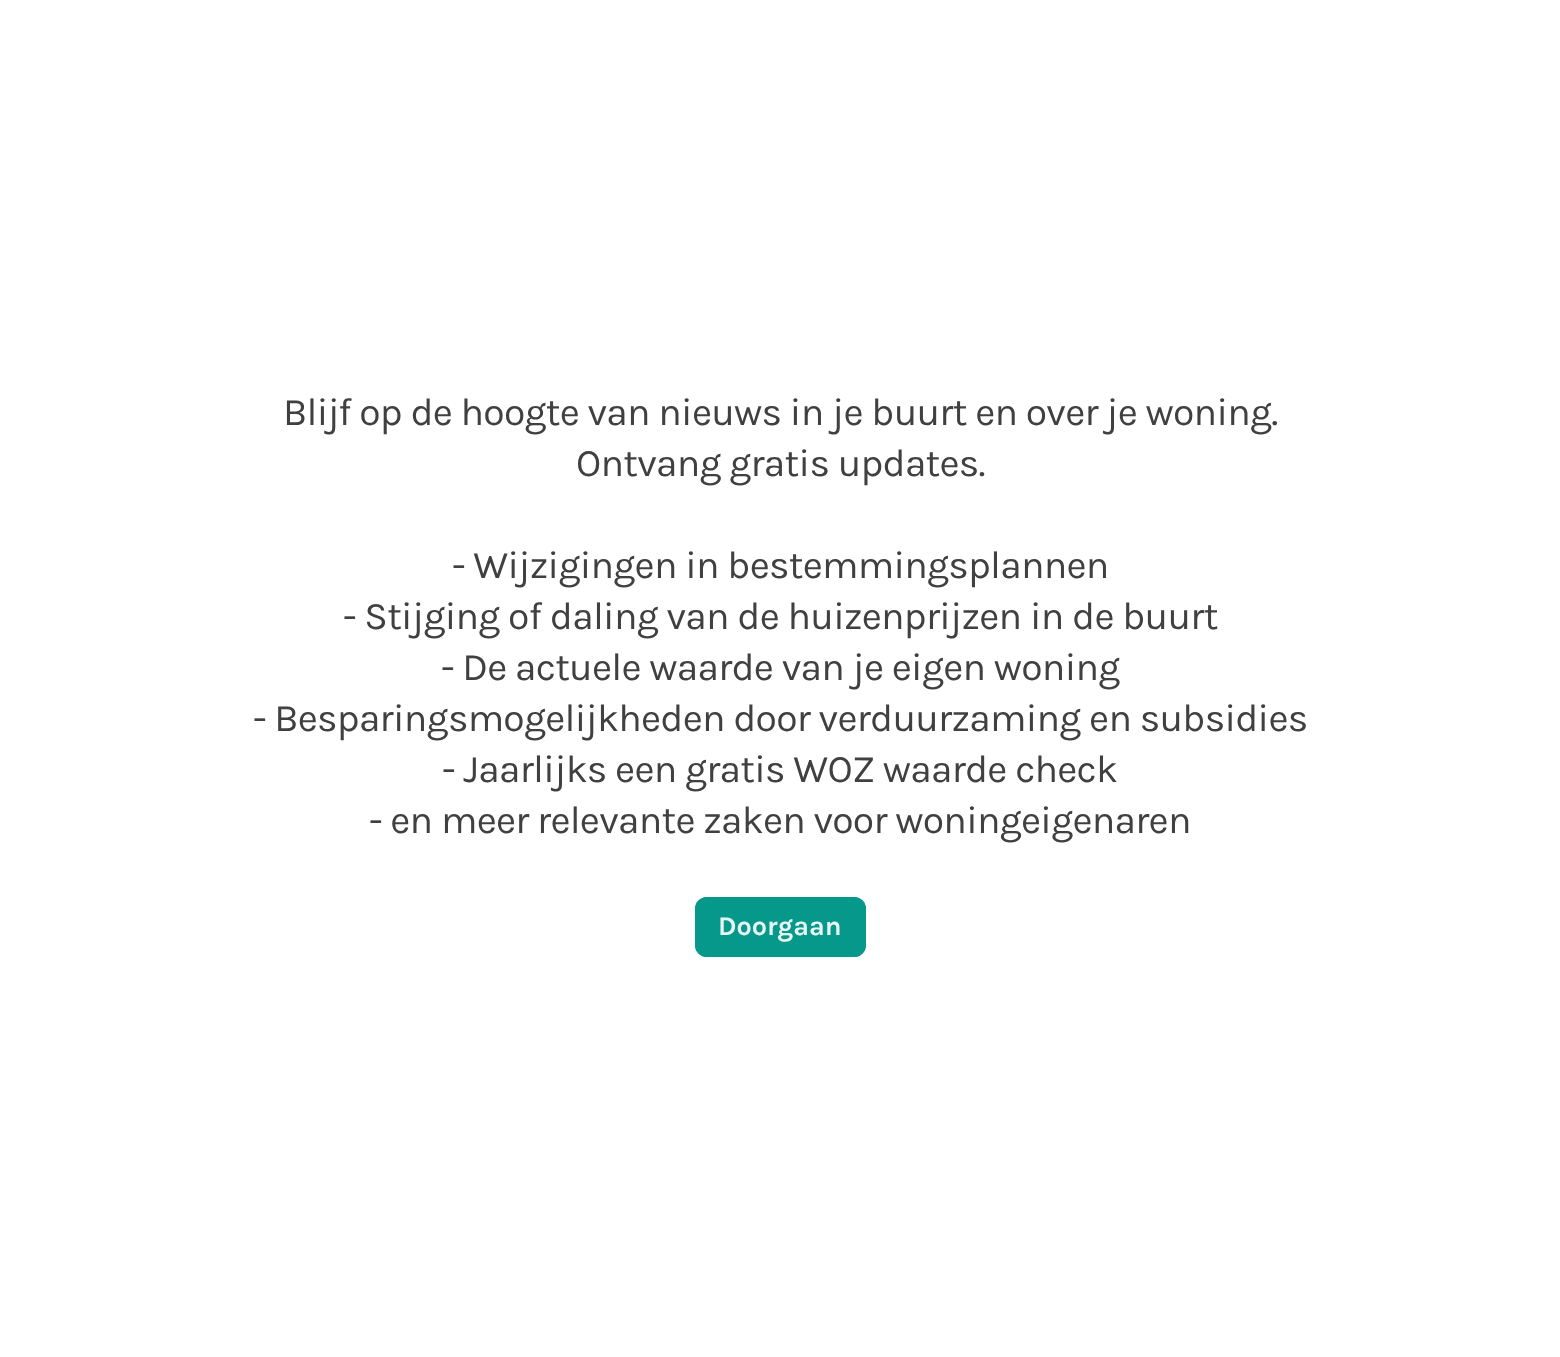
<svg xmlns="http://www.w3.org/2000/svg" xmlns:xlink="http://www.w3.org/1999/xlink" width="1560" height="1357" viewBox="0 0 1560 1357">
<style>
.cls-1{font:39px Karla;letter-spacing:-0.75px;fill:#404040}
.cls-2{font:bold 27px Karla;fill:#e7f5f3}
</style>
<rect width="100%" height="100%" fill="#ffffff"/>
<rect fill="none" stroke="#05988b" stroke-width="2" x="696" y="898" width="169" height="58" rx="11"/>
<rect fill="#05988b" filter="blur(0.5px)" x="695" y="897" width="171" height="60" rx="12"/>
<text class="cls-1" x="283" y="425">Blijf op de hoogte van nieuws in je buurt en over je woning.</text>
<text class="cls-1" x="576" y="476">Ontvang gratis updates.</text>
<text class="cls-1" x="452" y="578">- Wijzigingen in bestemmingsplannen</text>
<text class="cls-1" x="343" y="629">- Stijging of daling van de huizenprijzen in de buurt</text>
<text class="cls-1" x="441" y="680">- De actuele waarde van je eigen woning</text>
<text class="cls-1" x="253" y="731">- Besparingsmogelijkheden door verduurzaming en subsidies</text>
<text class="cls-1" x="442" y="782">- Jaarlijks een gratis WOZ waarde check</text>
<text class="cls-1" x="369" y="833">- en meer relevante zaken voor woningeigenaren</text>
<text class="cls-2" x="718" y="935">Doorgaan</text>
</svg>
